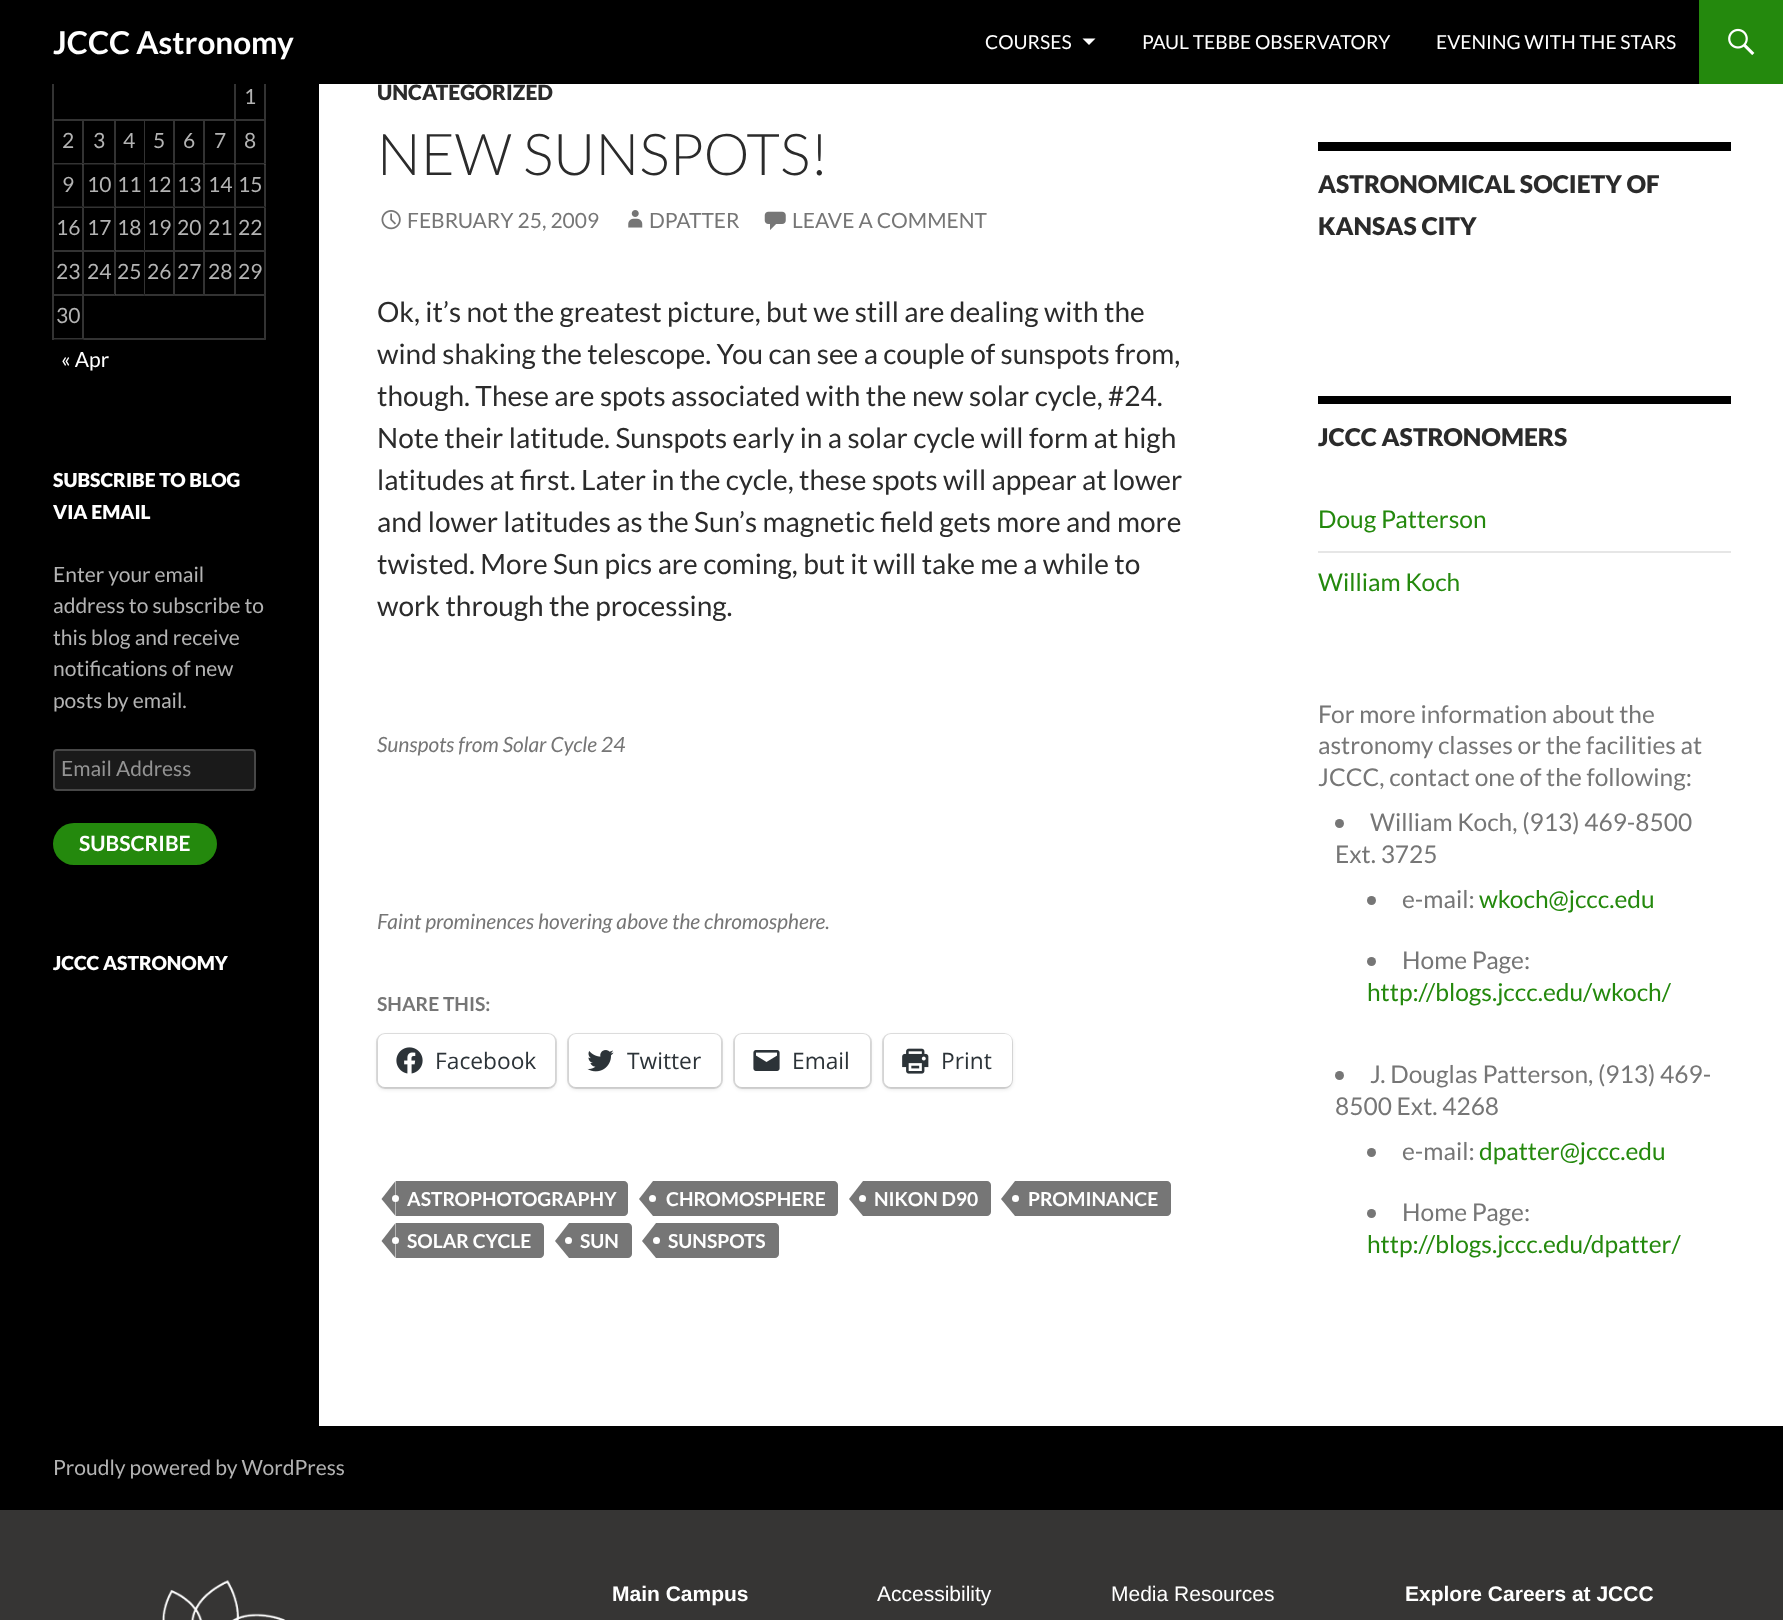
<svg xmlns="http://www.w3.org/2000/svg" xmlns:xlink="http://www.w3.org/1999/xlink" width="1783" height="1620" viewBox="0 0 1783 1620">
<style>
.cls-1{font:bold 31.5px Lato;fill:#ffffff}
.cls-2{font:19.25px Lato;fill:#ffffff}
.cls-3{font:21px Lato;fill:#b3b3b3}
.cls-4{font:21px Lato;fill:#ffffff}
.cls-5{font:900 19.25px Lato;fill:#ffffff}
.cls-6{font:21px Lato;fill:#939393}
.cls-7{font:bold 21px Lato;fill:#ffffff}
.cls-8{font:900 21px Lato;fill:#2b2b2b}
.cls-9{font:300 57.75px Lato;fill:#2b2b2b}
.cls-10{font:21px Lato;fill:#767676}
.cls-11{font:28px Lato;fill:#2b2b2b}
.cls-12{font:italic 21px Lato;fill:#767676}
.cls-13{font:bold 19.25px Lato;fill:#767676}
.cls-14{font:22.75px Open Sans;fill:#2c3338}
.cls-15{font:bold 19.25px Lato;fill:#ffffff}
.cls-16{font:900 24.5px Lato;fill:#2b2b2b}
.cls-17{font:24.5px Lato;fill:#24890d}
.cls-18{font:24.5px Lato;fill:#767676}
.cls-19{font:bold 21px Liberation Sans;fill:#ffffff}
.cls-20{font:21px Liberation Sans;fill:#ffffff}
</style>
<rect width="100%" height="100%" fill="#ffffff"/>
<rect fill="#000000" x="0" y="84" width="319" height="1342"/>
<path fill="#333333" d="M52 340V-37L54-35V340Z"/>
<path fill="#333333" d="M236 77V121L234 119V77Z"/>
<path fill="#333333" d="M266 77V121L264 119V77Z"/>
<rect fill="#000000" x="0" y="0" width="1699" height="84"/>
<path fill="#ffffff" d="M1082.5 38.5H1095.5L1089 45Z"/>
<rect fill="#24890d" x="1699" y="0" width="84" height="84"/>
<image xlink:href="image0.png" x="1728" y="28" width="27" height="27"/>
<path fill="#ffffff" fill-opacity="0.2" d="M236 121H54V119H234Z"/>
<path fill="#ffffff" fill-opacity="0.2" d="M266 121H236V119H264Z"/>
<path fill="#333333" d="M84 121V164L82 163V121Z"/>
<path fill="#ffffff" fill-opacity="0.2" d="M84 164.5H54V163H82Z"/>
<path fill="#333333" d="M116 121V164L114 163V121Z"/>
<path fill="#ffffff" fill-opacity="0.2" d="M115.5 164.5H84V163H114Z"/>
<path fill="#333333" d="M145 121V164L144 163V121Z"/>
<path fill="#ffffff" fill-opacity="0.2" d="M145 164.5H115.5V163H143.5Z"/>
<path fill="#333333" d="M175 121V164L173 163V121Z"/>
<path fill="#ffffff" fill-opacity="0.2" d="M175 164.5H145V163H173Z"/>
<path fill="#333333" d="M205 121V164L203 163V121Z"/>
<path fill="#ffffff" fill-opacity="0.2" d="M205 164.5H175V163H203Z"/>
<path fill="#333333" d="M236 121V164L234 163V121Z"/>
<path fill="#ffffff" fill-opacity="0.2" d="M236 164.5H205V163H234.5Z"/>
<path fill="#333333" d="M266 121V164L264 163V121Z"/>
<path fill="#ffffff" fill-opacity="0.2" d="M266 164.5H236V163H264Z"/>
<path fill="#ffffff" fill-opacity="0.2" d="M84 164V208L82 206V164Z"/>
<path fill="#333333" d="M84 208H54V206.5H82Z"/>
<path fill="#ffffff" fill-opacity="0.2" d="M116 164V208L114 206V164Z"/>
<path fill="#333333" d="M115.5 208H84V206.5H114Z"/>
<path fill="#ffffff" fill-opacity="0.2" d="M145 164V208L144 206V164Z"/>
<path fill="#ffffff" fill-opacity="0.2" d="M145 208H115.5V206.5H143.5ZM175 164V208L173 206V164Z"/>
<path fill="#333333" d="M175 208H145V206.5H173Z"/>
<path fill="#ffffff" fill-opacity="0.2" d="M205 164V208L203 206V164Z"/>
<path fill="#333333" d="M205 208H175V206.5H203Z"/>
<path fill="#ffffff" fill-opacity="0.2" d="M236 164V208L234 206V164Z"/>
<path fill="#ffffff" fill-opacity="0.2" d="M236 208H205V206.5H234.5ZM266 164V208L264 206V164Z"/>
<path fill="#333333" d="M266 208H236V206.5H264Z"/>
<path fill="#333333" d="M84 208V252L82 250V208Z"/>
<path fill="#ffffff" fill-opacity="0.2" d="M84 252H54V250H82Z"/>
<path fill="#333333" d="M116 208V252L114 250V208Z"/>
<path fill="#333333" d="M115.5 252H84V250H114ZM145 208V252L144 250V208Z"/>
<path fill="#ffffff" fill-opacity="0.2" d="M145 252H115.5V250H143.5Z"/>
<path fill="#333333" d="M175 208V252L173 250V208Z"/>
<path fill="#ffffff" fill-opacity="0.2" d="M175 252H145V250H173Z"/>
<path fill="#333333" d="M205 208V252L203 250V208Z"/>
<path fill="#ffffff" fill-opacity="0.2" d="M205 252H175V250H203Z"/>
<path fill="#333333" d="M236 208V252L234 250V208Z"/>
<path fill="#ffffff" fill-opacity="0.2" d="M236 252H205V250H234.5Z"/>
<path fill="#333333" d="M266 208V252L264 250V208Z"/>
<path fill="#ffffff" fill-opacity="0.2" d="M266 252H236V250H264Z"/>
<path fill="#333333" d="M84 252V296L82 294V252Z"/>
<path fill="#ffffff" fill-opacity="0.2" d="M84 296H54V294H82Z"/>
<path fill="#333333" d="M116 252V296L114 294V252Z"/>
<path fill="#333333" d="M115.5 296H84V294H114ZM145 252V296L144 294V252Z"/>
<path fill="#ffffff" fill-opacity="0.2" d="M145 296H115.5V294H143.5Z"/>
<path fill="#333333" d="M175 252V296L173 294V252Z"/>
<path fill="#ffffff" fill-opacity="0.2" d="M175 296H145V294H173Z"/>
<path fill="#333333" d="M205 252V296L203 294V252Z"/>
<path fill="#ffffff" fill-opacity="0.2" d="M205 296H175V294H203Z"/>
<path fill="#333333" d="M236 252V296L234 294V252Z"/>
<path fill="#ffffff" fill-opacity="0.2" d="M236 296H205V294H234.5Z"/>
<path fill="#333333" d="M266 252V296L264 294V252Z"/>
<path fill="#ffffff" fill-opacity="0.2" d="M266 296H236V294H264Z"/>
<path fill="#333333" d="M84 296V340L82 338V296Z"/>
<path fill="#ffffff" fill-opacity="0.2" d="M84 339.5H54V338H82Z"/>
<path fill="#333333" d="M266 296V340L264 338V296Z"/>
<path fill="#ffffff" fill-opacity="0.2" d="M266 340H84V338H264Z"/>
<rect fill="#1a1a1a" x="53" y="749" width="203" height="42" rx="4"/>
<rect fill="none" stroke="#ffffff" stroke-opacity="0.2" stroke-width="2" x="54" y="750" width="201" height="40" rx="3"/>
<rect fill="#24890d" x="53" y="823" width="164" height="42" rx="21"/>
<image xlink:href="image1.png" x="381" y="210" width="20" height="20"/>
<image xlink:href="image2.png" x="628" y="210" width="15" height="18"/>
<image xlink:href="image3.png" x="764" y="211" width="22" height="19"/>
<rect fill="none" stroke="#e0e0e0" stroke-width="2" x="377" y="1034" width="179" height="54" rx="8"/>
<rect fill="#000000" fill-opacity="0.12" filter="blur(2px)" x="378" y="1036" width="177" height="53" rx="7"/>
<rect fill="#ffffff" x="378" y="1034" width="177" height="53" rx="7"/>
<image xlink:href="image4.png" x="396" y="1047" width="27" height="27"/>
<rect fill="none" stroke="#e0e0e0" stroke-width="2" x="568" y="1034" width="154" height="54" rx="8"/>
<rect fill="#000000" fill-opacity="0.12" filter="blur(2px)" x="569" y="1036" width="152" height="53" rx="7"/>
<rect fill="#ffffff" x="569" y="1034" width="152" height="53" rx="7"/>
<image xlink:href="image5.png" x="587" y="1050" width="27" height="22"/>
<rect fill="none" stroke="#e0e0e0" stroke-width="2" x="734" y="1034" width="137" height="54" rx="8"/>
<rect fill="#000000" fill-opacity="0.12" filter="blur(2px)" x="735" y="1036" width="135" height="53" rx="7"/>
<rect fill="#ffffff" x="735" y="1034" width="135" height="53" rx="7"/>
<image xlink:href="image6.png" x="753" y="1050" width="27" height="21"/>
<rect fill="none" stroke="#e0e0e0" stroke-width="2" x="883" y="1034" width="129" height="54" rx="8"/>
<rect fill="#000000" fill-opacity="0.12" filter="blur(2px)" x="884" y="1036" width="128" height="53" rx="7"/>
<rect fill="#ffffff" x="884" y="1034" width="128" height="53" rx="7"/>
<image xlink:href="image7.png" x="902" y="1048" width="27" height="26"/>
<path fill="#767676" d="M396 1181H624C626 1181 628 1183 628 1185V1212C628 1214 626 1216 624 1216H396Z"/>
<path fill="#767676" d="M395.5 1181V1216L381.5 1199Z"/>
<circle fill="#ffffff" cx="395.5" cy="1198.5" r="3.5"/>
<path fill="#767676" d="M653 1181H834C836 1181 838 1183 838 1185V1212C838 1214 836 1216 834 1216H653Z"/>
<path fill="#767676" d="M653 1181V1216L639 1199Z"/>
<circle fill="#ffffff" cx="652.5" cy="1198.5" r="3.5"/>
<path fill="#767676" d="M863 1181H987C989 1181 991 1183 991 1185V1212C991 1214 989 1216 987 1216H863Z"/>
<path fill="#767676" d="M863 1181V1216L849 1199Z"/>
<circle fill="#ffffff" cx="862.5" cy="1198.5" r="3.5"/>
<path fill="#767676" d="M1015 1181H1167C1169 1181 1171 1183 1171 1185V1212C1171 1214 1169 1216 1167 1216H1015Z"/>
<path fill="#767676" d="M1015 1181V1216L1001 1199Z"/>
<circle fill="#ffffff" cx="1015.5" cy="1198.5" r="3.5"/>
<path fill="#767676" d="M396 1223H540C542 1223 544 1225 544 1227V1254C544 1256 542 1258 540 1258H396Z"/>
<path fill="#767676" d="M395.5 1223V1258L381.5 1241Z"/>
<circle fill="#ffffff" cx="395.5" cy="1240.5" r="3.5"/>
<path fill="#767676" d="M569 1223H628C630 1223 632 1225 632 1227V1254C632 1256 630 1258 628 1258H569Z"/>
<path fill="#767676" d="M569 1223V1258L555 1241Z"/>
<circle fill="#ffffff" cx="568.5" cy="1240.5" r="3.5"/>
<path fill="#767676" d="M656 1223H775C777 1223 779 1225 779 1227V1254C779 1256 777 1258 775 1258H656Z"/>
<path fill="#767676" d="M656 1223V1258L642 1241Z"/>
<circle fill="#ffffff" cx="656.5" cy="1240.5" r="3.5"/>
<rect fill="#000000" x="1318" y="142" width="413" height="9"/>
<rect fill="#000000" x="1318" y="396" width="413" height="8"/>
<rect fill="#e6e6e6" x="1318" y="551" width="413" height="2"/>
<circle fill="#767676" cx="1339.5" cy="823.5" r="4.5"/>
<circle fill="#767676" cx="1371.5" cy="900.5" r="4.5"/>
<circle fill="#767676" cx="1371.5" cy="961.5" r="4.5"/>
<circle fill="#767676" cx="1339.5" cy="1075.5" r="4.5"/>
<circle fill="#767676" cx="1371.5" cy="1152.5" r="4.5"/>
<circle fill="#767676" cx="1371.5" cy="1213.5" r="4.5"/>
<rect fill="#000000" x="0" y="1426" width="1783" height="84"/>
<rect fill="#363534" x="0" y="1510" width="1783" height="110"/>
<image xlink:href="image8.png" x="162" y="1580" width="124" height="40"/>
<text class="cls-1" x="53" y="54">JCCC Astronomy</text>
<text class="cls-2" x="985" y="49">COURSES</text>
<text class="cls-2" x="1142" y="49">PAUL TEBBE OBSERVATORY</text>
<text class="cls-2" x="1436" y="49">EVENING WITH THE STARS</text>
<text class="cls-3" x="244" y="104">1</text>
<text class="cls-3" x="62" y="148">2</text>
<text class="cls-3" x="93" y="148">3</text>
<text class="cls-3" x="123" y="148">4</text>
<text class="cls-3" x="153" y="148">5</text>
<text class="cls-3" x="183" y="148">6</text>
<text class="cls-3" x="214" y="148">7</text>
<text class="cls-3" x="244" y="148">8</text>
<text class="cls-3" x="62" y="192">9</text>
<text class="cls-3" x="87" y="192">10</text>
<text class="cls-3" x="117" y="192">11</text>
<text class="cls-3" x="147" y="192">12</text>
<text class="cls-3" x="177" y="192">13</text>
<text class="cls-3" x="208" y="192">14</text>
<text class="cls-3" x="238" y="192">15</text>
<text class="cls-3" x="56" y="235">16</text>
<text class="cls-3" x="87" y="235">17</text>
<text class="cls-3" x="117" y="235">18</text>
<text class="cls-3" x="147" y="235">19</text>
<text class="cls-3" x="177" y="235">20</text>
<text class="cls-3" x="208" y="235">21</text>
<text class="cls-3" x="238" y="235">22</text>
<text class="cls-3" x="56" y="279">23</text>
<text class="cls-3" x="87" y="279">24</text>
<text class="cls-3" x="117" y="279">25</text>
<text class="cls-3" x="147" y="279">26</text>
<text class="cls-3" x="177" y="279">27</text>
<text class="cls-3" x="208" y="279">28</text>
<text class="cls-3" x="238" y="279">29</text>
<text class="cls-3" x="56" y="323">30</text>
<text class="cls-4" x="61" y="367">« Apr</text>
<text class="cls-5"><tspan x="53" y="487">SUBSCRIBE TO BLOG</tspan><tspan x="53" y="519">VIA EMAIL</tspan></text>
<text class="cls-3"><tspan x="53" y="582">Enter your email</tspan><tspan x="53" y="613">address to subscribe to</tspan><tspan x="53" y="645">this blog and receive</tspan><tspan x="53" y="676">notifications of new</tspan><tspan x="53" y="708">posts by email.</tspan></text>
<text class="cls-6" x="61" y="776">Email Address</text>
<text class="cls-7" x="79" y="851">SUBSCRIBE</text>
<text class="cls-5" x="53" y="970">JCCC ASTRONOMY</text>
<text class="cls-8" x="377" y="100">UNCATEGORIZED</text>
<text class="cls-9" x="377" y="175">NEW SUNSPOTS!</text>
<text class="cls-10" x="407" y="228">FEBRUARY 25, 2009</text>
<text class="cls-10" x="649" y="228">DPATTER</text>
<text class="cls-10" x="792" y="228">LEAVE A COMMENT</text>
<text class="cls-11"><tspan x="377" y="322">Ok, it’s not the greatest picture, but we still are dealing with the</tspan><tspan x="377" y="364">wind shaking the telescope. You can see a couple of sunspots from,</tspan><tspan x="377" y="406">though. These are spots associated with the new solar cycle, #24.</tspan><tspan x="377" y="448">Note their latitude. Sunspots early in a solar cycle will form at high</tspan><tspan x="377" y="490">latitudes at first. Later in the cycle, these spots will appear at lower</tspan><tspan x="377" y="532">and lower latitudes as the Sun’s magnetic field gets more and more</tspan><tspan x="377" y="574">twisted. More Sun pics are coming, but it will take me a while to</tspan><tspan x="377" y="616">work through the processing.</tspan></text>
<text class="cls-12" x="377" y="752">Sunspots from Solar Cycle 24</text>
<text class="cls-12" x="377" y="929">Faint prominences hovering above the chromosphere.</text>
<text class="cls-13" x="377" y="1011">SHARE THIS:</text>
<text class="cls-14" x="435" y="1069">Facebook</text>
<text class="cls-14" x="627" y="1069">Twitter</text>
<text class="cls-14" x="792" y="1069">Email</text>
<text class="cls-14" x="941" y="1069">Print</text>
<text class="cls-15" x="407" y="1206">ASTROPHOTOGRAPHY</text>
<text class="cls-15" x="666" y="1206">CHROMOSPHERE</text>
<text class="cls-15" x="874" y="1206">NIKON D90</text>
<text class="cls-15" x="1028" y="1206">PROMINANCE</text>
<text class="cls-15" x="407" y="1248">SOLAR CYCLE</text>
<text class="cls-15" x="580" y="1248">SUN</text>
<text class="cls-15" x="668" y="1248">SUNSPOTS</text>
<text class="cls-16"><tspan x="1318" y="193">ASTRONOMICAL SOCIETY OF</tspan><tspan x="1318" y="235">KANSAS CITY</tspan></text>
<text class="cls-16" x="1318" y="446">JCCC ASTRONOMERS</text>
<text class="cls-17" x="1318" y="528">Doug Patterson</text>
<text class="cls-17" x="1318" y="591">William Koch</text>
<text class="cls-18"><tspan x="1318" y="723">For more information about the</tspan><tspan x="1318" y="754">astronomy classes or the facilities at</tspan><tspan x="1318" y="786">JCCC, contact one of the following:</tspan></text>
<text class="cls-18" x="1370" y="831">William Koch, (913) 469-8500</text>
<text class="cls-18" x="1335" y="863">Ext. 3725</text>
<text class="cls-18" x="1402" y="908">e-mail:</text>
<text class="cls-17" x="1479" y="908">wkoch@jccc.edu</text>
<text class="cls-18" x="1402" y="969">Home Page:</text>
<text class="cls-17" x="1367" y="1001">http://blogs.jccc.edu/wkoch/</text>
<text class="cls-18" x="1370" y="1083">J. Douglas Patterson, (913) 469-</text>
<text class="cls-18" x="1335" y="1115">8500 Ext. 4268</text>
<text class="cls-18" x="1402" y="1160">e-mail:</text>
<text class="cls-17" x="1479" y="1160">dpatter@jccc.edu</text>
<text class="cls-18" x="1402" y="1221">Home Page:</text>
<text class="cls-17" x="1367" y="1253">http://blogs.jccc.edu/dpatter/</text>
<text class="cls-3" x="53" y="1475">Proudly powered by WordPress</text>
<text class="cls-19" x="612" y="1601">Main Campus</text>
<text class="cls-20" x="877" y="1601">Accessibility</text>
<text class="cls-20" x="1111" y="1601">Media Resources</text>
<text class="cls-19" x="1405" y="1601">Explore Careers at JCCC</text>
</svg>
